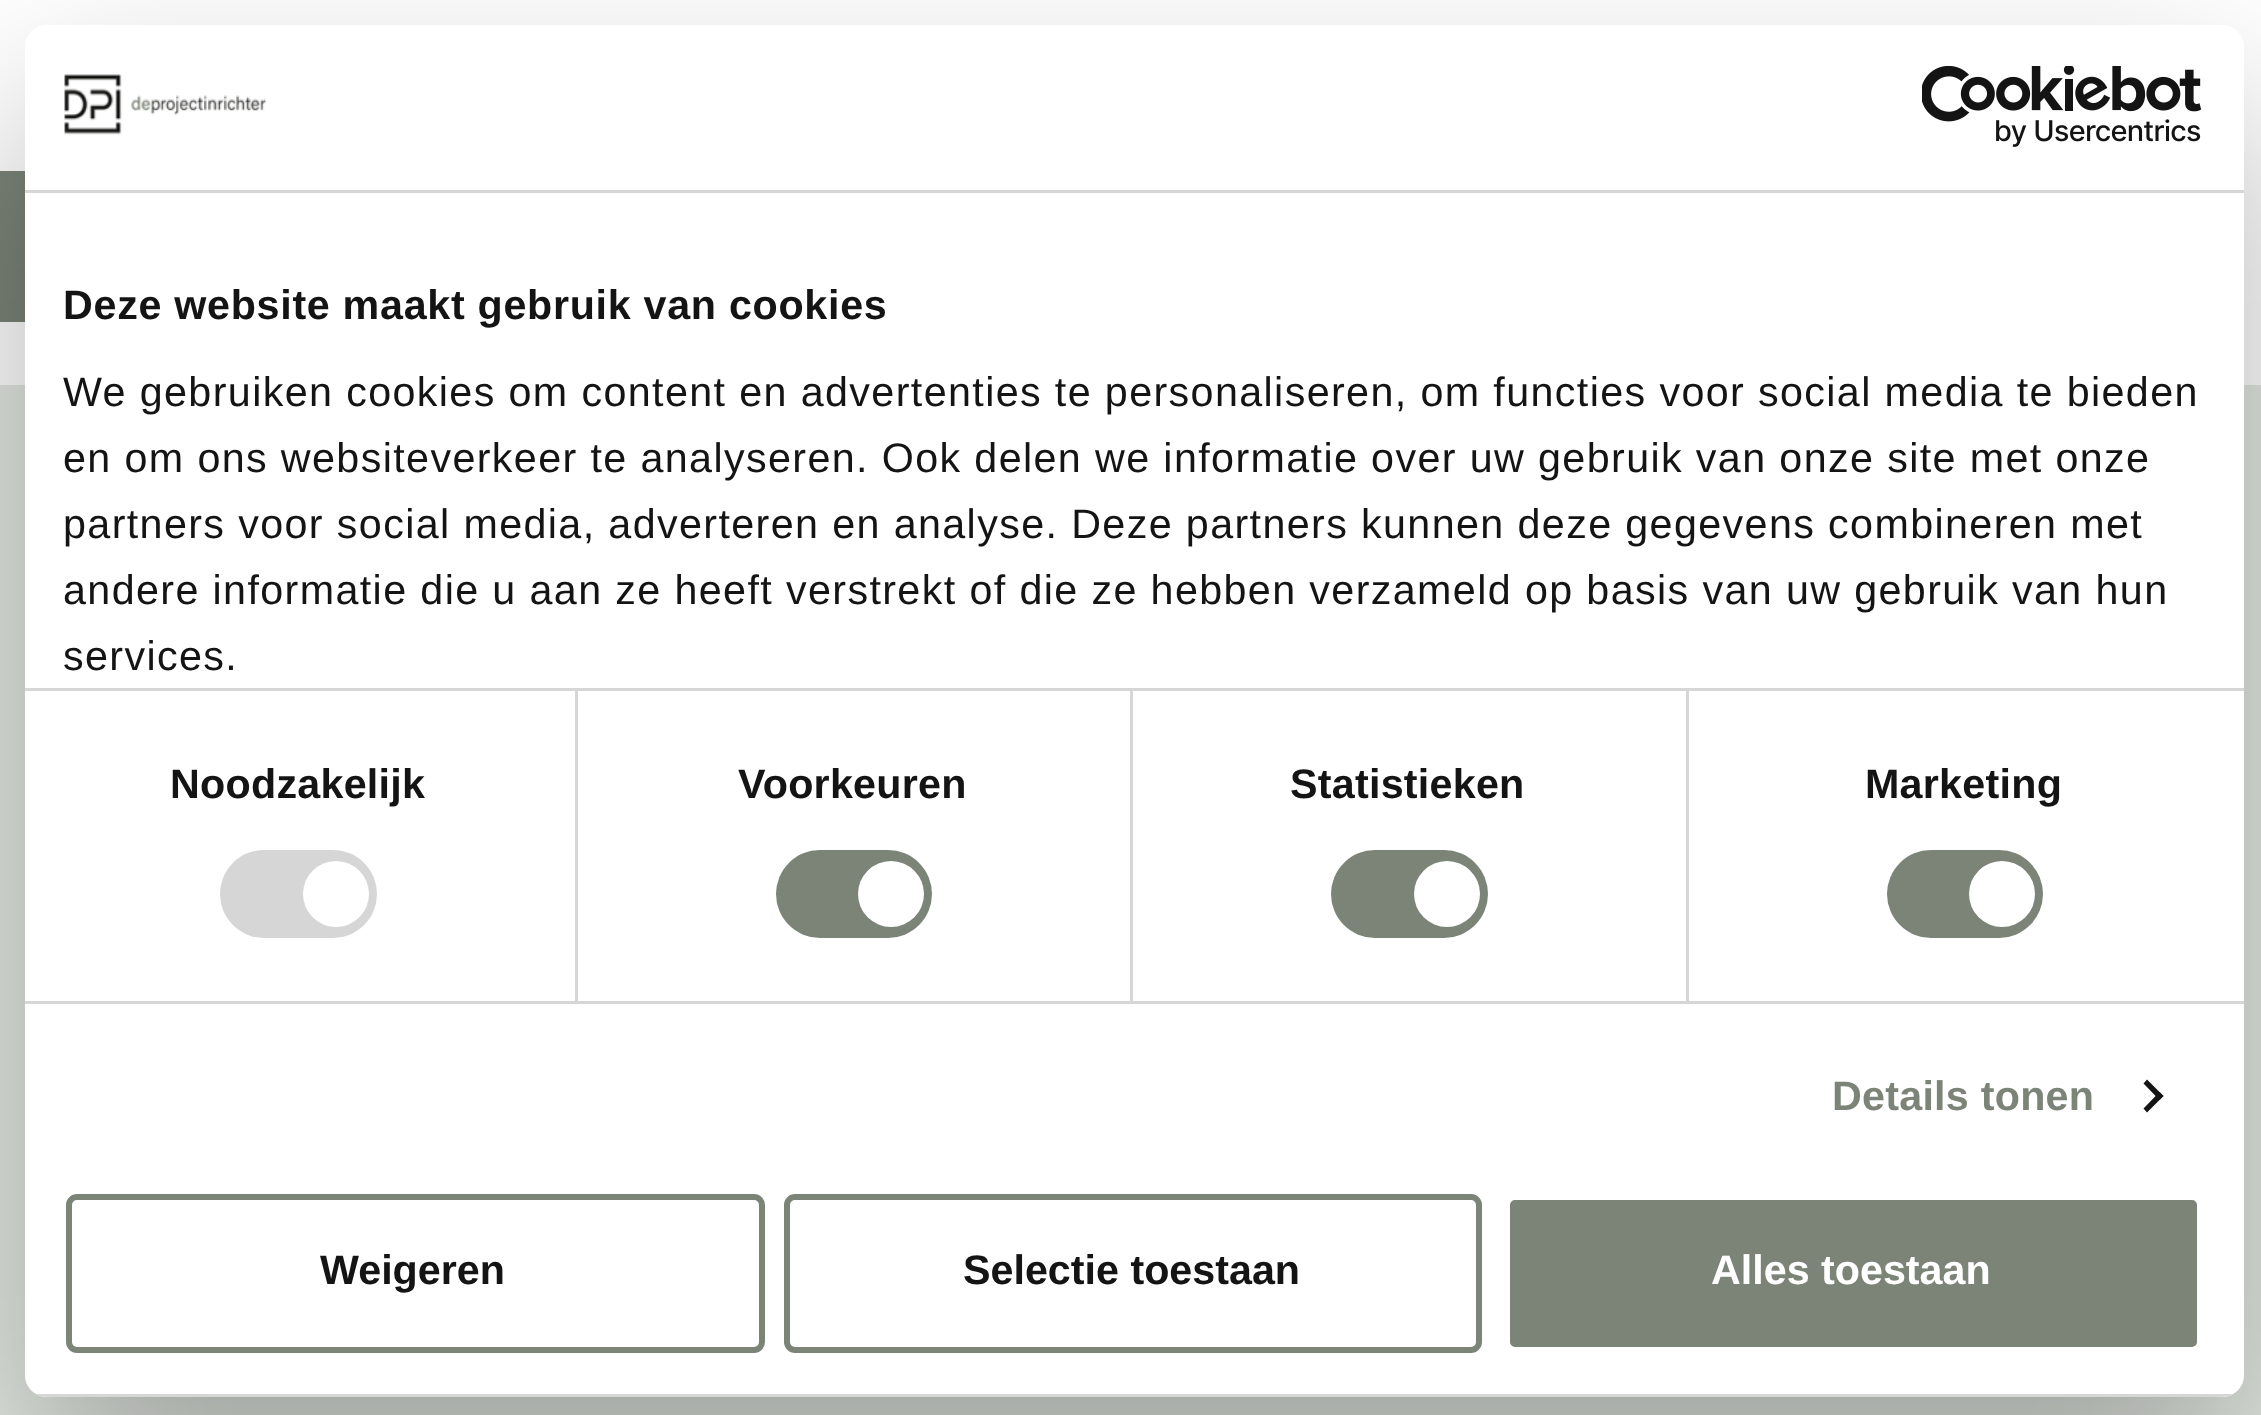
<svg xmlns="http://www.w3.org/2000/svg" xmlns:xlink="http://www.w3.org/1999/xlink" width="2261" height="1415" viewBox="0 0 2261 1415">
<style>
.cls-1{font:bold 41.25px Liberation Sans;letter-spacing:0.7px;fill:#141414}
.cls-2{font:41.25px Liberation Sans;letter-spacing:1.38px;fill:#141414}
.cls-3{font:bold 41.25px Liberation Sans;letter-spacing:0.25px;fill:#141414}
.cls-4{font:bold 41.25px Liberation Sans;letter-spacing:0.25px;fill:#7c8478}
.cls-5{font:bold 41.25px Liberation Sans;fill:#141414}
.cls-6{font:bold 41.25px Liberation Sans;fill:#ffffff}
</style>
<defs>
<clipPath id="clip1"><path d="M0 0H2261V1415H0ZM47 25H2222C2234 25 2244 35 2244 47V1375C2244 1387 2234 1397 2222 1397H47C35 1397 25 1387 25 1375V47C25 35 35 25 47 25Z" clip-rule="evenodd"/></clipPath>
<clipPath id="clip2"><rect x="25" y="25" width="2219" height="1372" rx="22"/></clipPath>
</defs>
<rect width="100%" height="100%" fill="#e4e9e3"/>
<rect fill="#ffffff" x="0" y="0" width="2261" height="385"/>
<rect fill="#7c8478" x="0" y="171" width="25" height="151"/>
<g clip-path="url(#clip1)">
<rect fill="#000000" fill-opacity="0.3" filter="blur(93.5px)" x="25" y="113" width="2219" height="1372" rx="22"/>
</g>
<rect fill="#ffffff" x="25" y="25" width="2219" height="1372" rx="22"/>
<rect fill="#d6d6d6" x="25" y="190" width="2219" height="3"/>
<image xlink:href="image0.png" x="64" y="74" width="203" height="61"/>
<image xlink:href="image1.png" x="1922" y="66" width="280" height="81"/>
<rect fill="#d6d6d6" x="575" y="690" width="3" height="311"/>
<rect fill="#d6d6d6" x="1130" y="690" width="3" height="311"/>
<rect fill="#d6d6d6" x="1686" y="690" width="3" height="311"/>
<rect fill="#d6d6d6" x="25" y="688" width="2219" height="3"/>
<rect fill="#d6d6d6" x="25" y="1001" width="2219" height="3"/>
<rect fill="#d6d6d6" x="220" y="850" width="157" height="88" rx="44"/>
<circle fill="#ffffff" cx="336" cy="894" r="33"/>
<rect fill="#7c8478" x="776" y="850" width="156" height="88" rx="44"/>
<circle fill="#ffffff" cx="891" cy="894" r="33"/>
<rect fill="#7c8478" x="1331" y="850" width="157" height="88" rx="44"/>
<circle fill="#ffffff" cx="1447" cy="894" r="33"/>
<rect fill="#7c8478" x="1887" y="850" width="156" height="88" rx="44"/>
<circle fill="#ffffff" cx="2002" cy="894" r="33"/>
<path fill="#141414" d="M2147 1079.5L2163.5 1096L2159.5 1100L2143.5 1083.5Z"/>
<path fill="#141414" d="M2159.5 1092L2163.5 1096L2147 1112.5L2143.5 1108.5Z"/>
<g clip-path="url(#clip2)">
<rect fill="#d6d6d6" x="36" y="1394" width="2197" height="3"/>
</g>
<rect fill="none" stroke="#7c8478" stroke-width="6" x="69" y="1197" width="693" height="153" rx="8"/>
<rect fill="none" stroke="#7c8478" stroke-width="6" x="787" y="1197" width="692" height="153" rx="8"/>
<rect fill="#7c8478" stroke="#ffffff" stroke-width="6" x="1507" y="1197" width="693" height="153" rx="8"/>
<text class="cls-1" x="63" y="319">Deze website maakt gebruik van cookies</text>
<text class="cls-2"><tspan x="63" y="406">We gebruiken cookies om content en advertenties te personaliseren, om functies voor social media te bieden</tspan><tspan x="63" y="472">en om ons websiteverkeer te analyseren. Ook delen we informatie over uw gebruik van onze site met onze</tspan><tspan x="63" y="538">partners voor social media, adverteren en analyse. Deze partners kunnen deze gegevens combineren met</tspan><tspan x="63" y="604">andere informatie die u aan ze heeft verstrekt of die ze hebben verzameld op basis van uw gebruik van hun</tspan><tspan x="63" y="670">services.</tspan></text>
<text class="cls-3" x="170" y="798">Noodzakelijk</text>
<text class="cls-3" x="738" y="798">Voorkeuren</text>
<text class="cls-3" x="1290" y="798">Statistieken</text>
<text class="cls-3" x="1865" y="798">Marketing</text>
<text class="cls-4" x="1832" y="1110">Details tonen</text>
<text class="cls-5" x="320" y="1284">Weigeren</text>
<text class="cls-5" x="963" y="1284">Selectie toestaan</text>
<text class="cls-6" x="1711" y="1284">Alles toestaan</text>
</svg>
